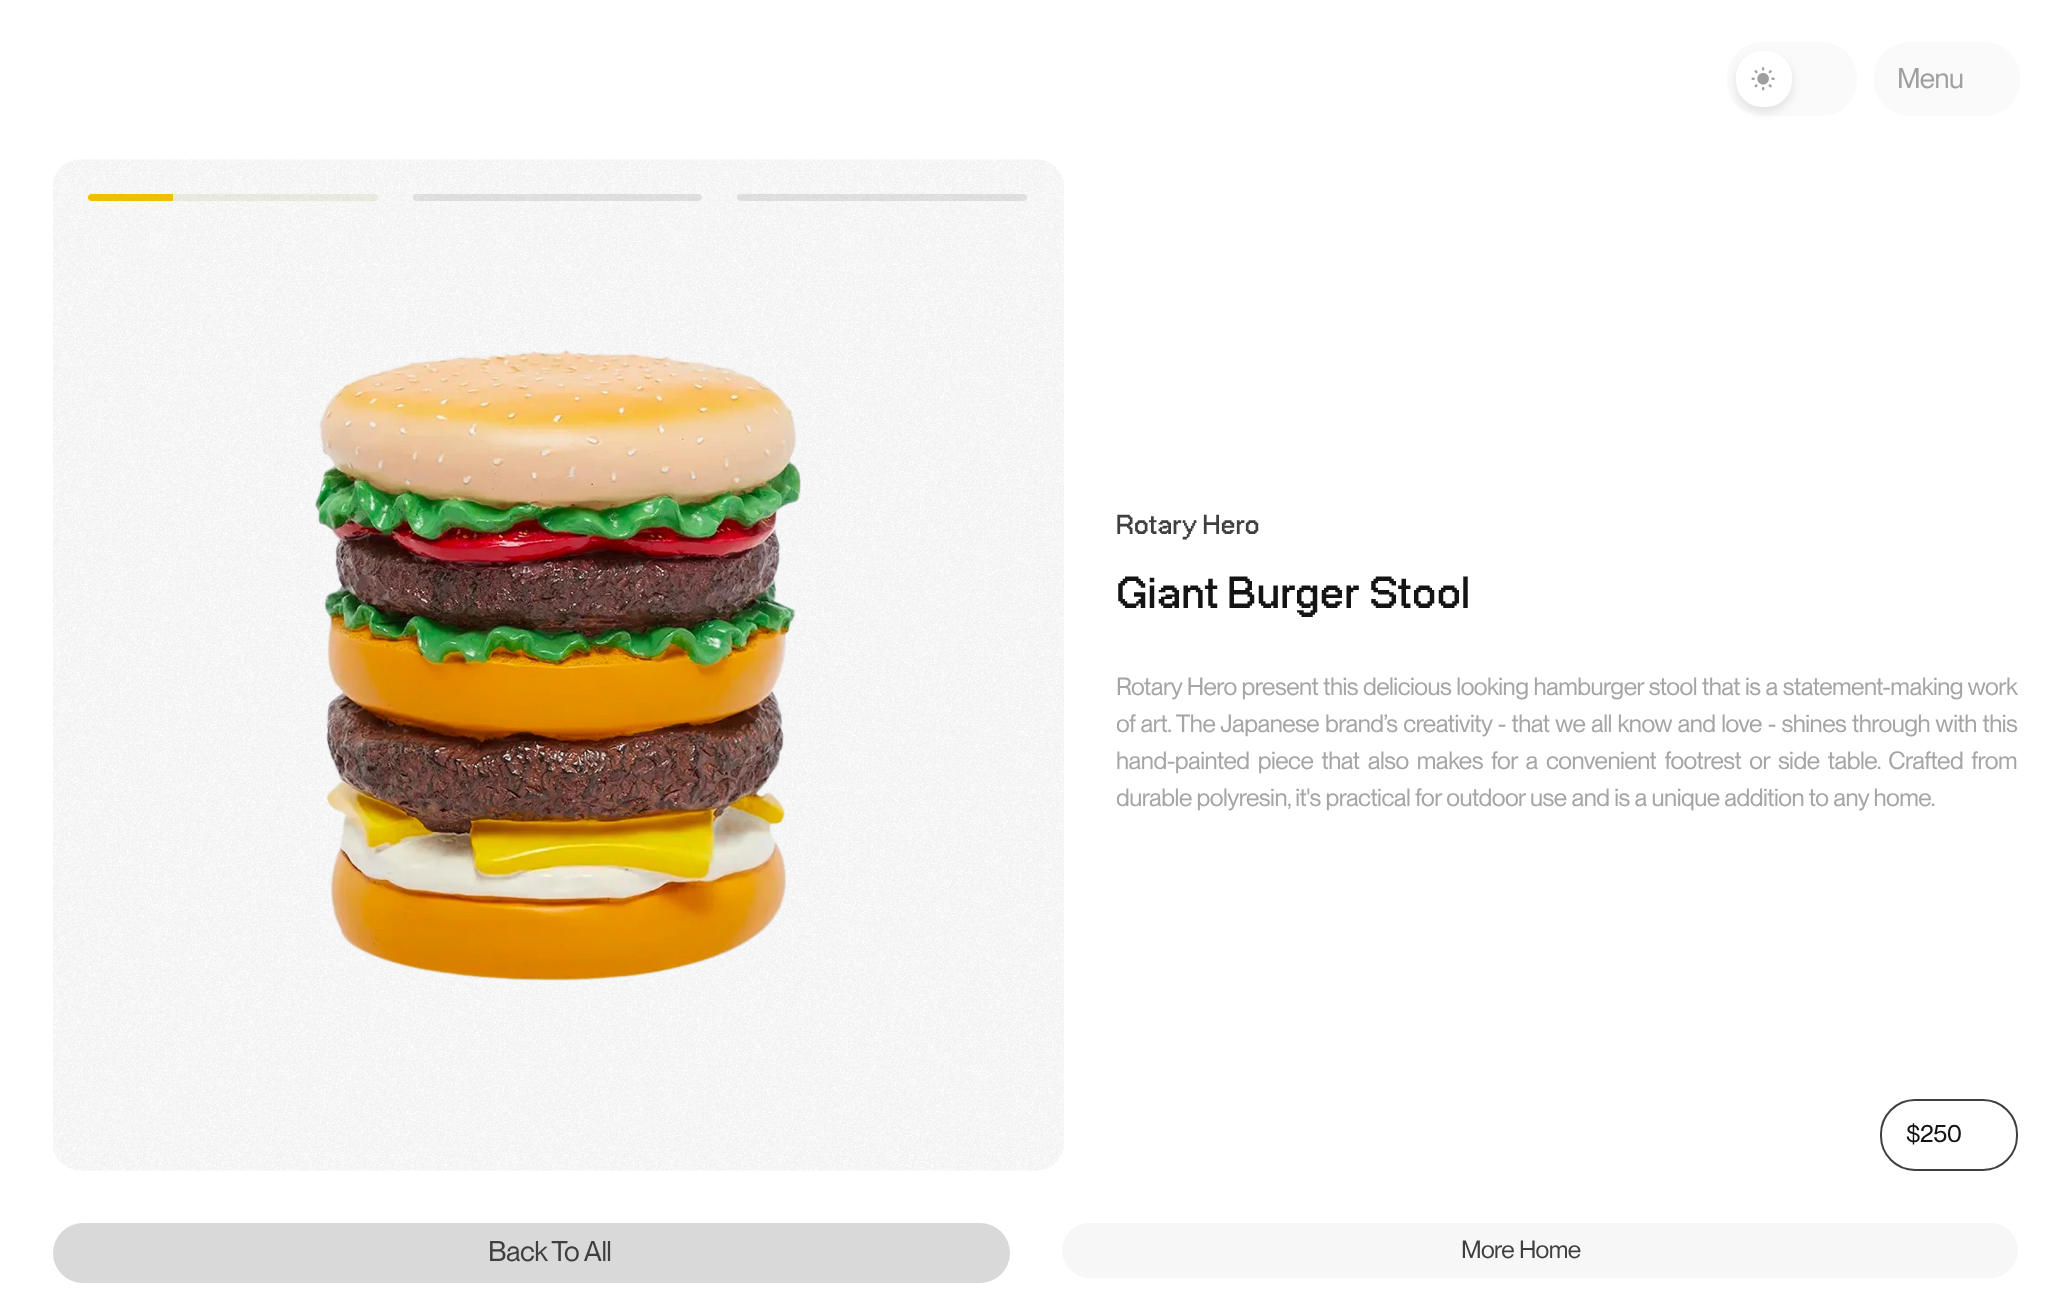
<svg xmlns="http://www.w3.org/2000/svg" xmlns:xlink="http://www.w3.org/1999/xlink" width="2069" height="1299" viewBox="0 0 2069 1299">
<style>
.cls-1{font:28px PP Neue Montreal;letter-spacing:-0.5px;fill:#9f9f9f}
.cls-2{font:bold 38.5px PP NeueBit;fill:#3f3f3f}
.cls-3{font:bold 63px PP NeueBit;fill:#141414}
.cls-4{font:24.5px PP Neue Montreal;letter-spacing:-0.5px;fill:#a5a5a5}
.cls-5{font:24.5px PP Neue Montreal;letter-spacing:-0.5px;fill:#141414}
.cls-6{font:28px PP Neue Montreal;letter-spacing:-0.5px;fill:#3f3f3f}
.cls-7{font:24.5px PP Neue Montreal;letter-spacing:-0.5px;fill:#3f3f3f}
</style>
<defs>
<clipPath id="clip1"><rect x="1117" y="508" width="901" height="308"/></clipPath>
</defs>
<rect width="100%" height="100%" fill="#ffffff"/>
<rect fill="#fafafa" x="1727" y="42" width="130" height="74" rx="35"/>
<rect fill="#808080" fill-opacity="0.2" filter="blur(5px)" x="1736" y="56" width="56" height="56" rx="26"/>
<rect fill="#ffffff" x="1736" y="51" width="56" height="56" rx="26"/>
<image xlink:href="image0.png" x="1751" y="67" width="24" height="24"/>
<rect fill="#fafafa" x="1874" y="42" width="146" height="74" rx="35"/>
<circle fill="#ffffff" cx="1965" cy="80" r="1"/>
<image xlink:href="image1.png" x="53" y="159" width="1011" height="1012"/>
<path fill="#ffc700" d="M91.5 194H173V201H91.5C89.5 201 88 199.5 88 197.5C88 195.5 89.5 194 91.5 194Z"/>
<rect fill="#8b6d11" fill-opacity="0.1" x="88" y="194" width="290" height="7" rx="3.5"/>
<rect fill="#141414" fill-opacity="0.1" x="413" y="194" width="289" height="7" rx="3.5"/>
<rect fill="#141414" fill-opacity="0.1" x="737" y="194" width="290" height="7" rx="3.5"/>
<image xlink:href="image2.png" x="315" y="350" width="486" height="631"/>
<rect fill="none" stroke="#3f3f3f" stroke-width="2" x="1881" y="1100" width="136" height="70" rx="34"/>
<rect fill="#d9d9d9" x="53" y="1223" width="957" height="60" rx="30"/>
<rect fill="#f7f7f7" x="1062" y="1223" width="956" height="55" rx="27.5"/>
<text class="cls-1" x="1897" y="88">Menu</text>
<text class="cls-2" x="1116" y="534">Rotary Hero</text>
<text class="cls-3" x="1116" y="608">Giant Burger Stool</text>
<text class="cls-4" x="1116" y="695" word-spacing="0.25">Rotary Hero present this delicious looking hamburger stool that is a statement-making work</text>
<g clip-path="url(#clip1)">
<text class="cls-4" x="1116" y="732" word-spacing="1">of art. The Japanese brand’s creativity - that we all know and love - shines through with this</text>
</g>
<text class="cls-4" x="1116" y="769" word-spacing="3.4">hand-painted piece that also makes for a convenient footrest or side table. Crafted from</text>
<g clip-path="url(#clip1)">
<text class="cls-4" x="1116" y="806">durable polyresin, it's practical for outdoor use and is a unique addition to any home.</text>
</g>
<text class="cls-5" x="1906" y="1142">$250</text>
<text class="cls-6" x="488" y="1261">Back To All</text>
<text class="cls-7" x="1461" y="1258">More Home</text>
</svg>
